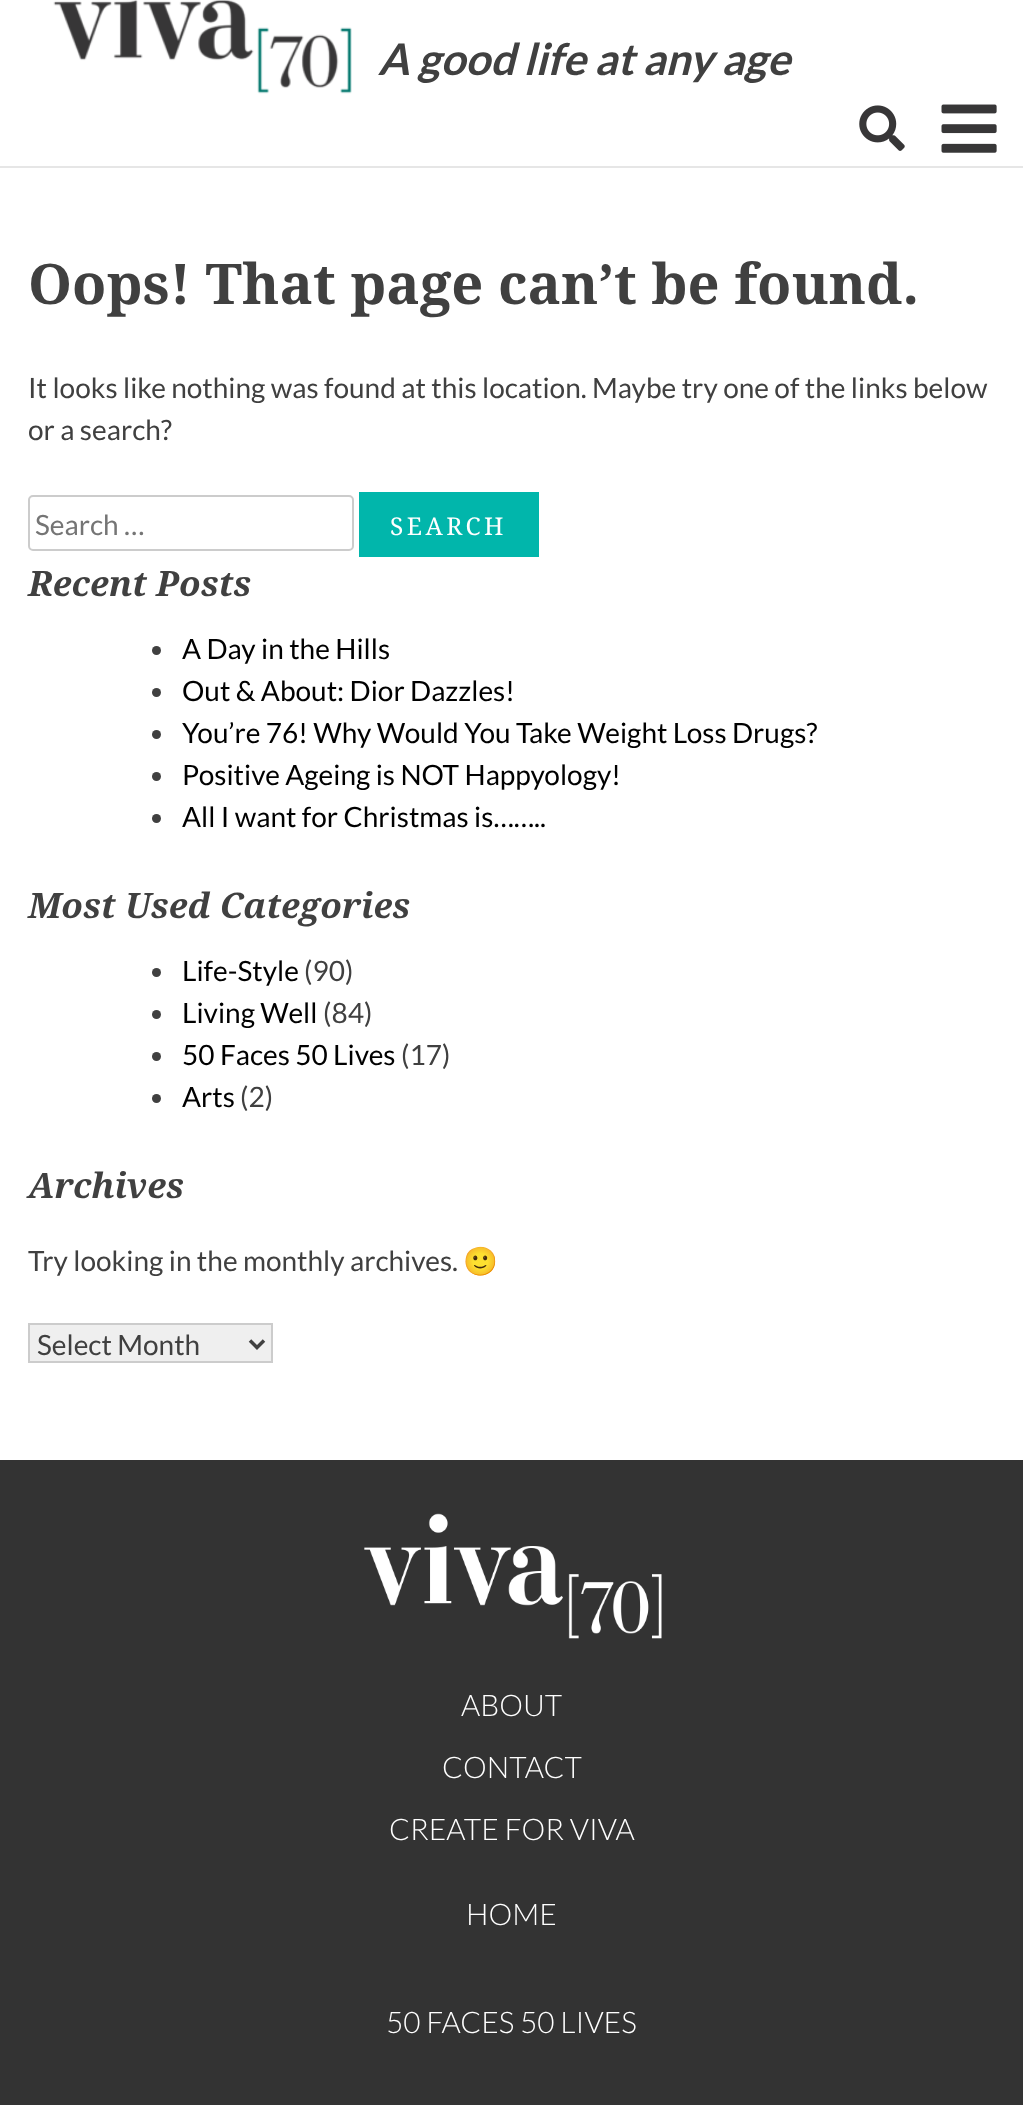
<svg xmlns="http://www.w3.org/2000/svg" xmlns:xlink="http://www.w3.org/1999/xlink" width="1023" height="2105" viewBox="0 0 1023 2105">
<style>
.cls-1{font:italic bold 43.75px Lato;fill:#404040}
.cls-2{font:bold 56px Noto Serif;fill:#404040}
.cls-3{font:28px Lato;fill:#404040}
.cls-4{font:28px Lato;fill:#757575}
.cls-5{font:24.5px Noto Serif;letter-spacing:3.5px;fill:#ffffff}
.cls-6{font:italic bold 35px Noto Serif;fill:#404040}
.cls-7{font:28px Lato;fill:#000000}
.cls-8{font:28px Noto Color Emoji;fill:#404040}
.cls-9{font:300 29.75px Lato;fill:#ffffff}
</style>
<rect width="100%" height="100%" fill="#ffffff"/>
<image xlink:href="image0.png" x="53" y="0" width="299" height="94"/>
<image xlink:href="image1.png" x="859" y="105" width="46" height="46"/>
<image xlink:href="image2.png" x="941" y="104" width="56" height="49"/>
<rect fill="#e6e6e6" x="0" y="166" width="1023" height="2"/>
<rect fill="none" stroke="#cccccc" stroke-width="2" x="29" y="496" width="324" height="54" rx="4"/>
<rect fill="#01b6ab" x="359" y="492" width="180" height="65"/>
<circle fill="#404040" cx="156.5" cy="650.5" r="4.5"/>
<circle fill="#404040" cx="156.5" cy="692.5" r="4.5"/>
<circle fill="#404040" cx="156.5" cy="734.5" r="4.5"/>
<circle fill="#404040" cx="156.5" cy="776.5" r="4.5"/>
<circle fill="#404040" cx="156.5" cy="818.5" r="4.5"/>
<circle fill="#404040" cx="156.5" cy="972.5" r="4.5"/>
<circle fill="#404040" cx="156.5" cy="1014.5" r="4.5"/>
<circle fill="#404040" cx="156.5" cy="1056.5" r="4.5"/>
<circle fill="#404040" cx="156.5" cy="1098.5" r="4.5"/>
<rect fill="#efefef" stroke="#cccccc" stroke-width="2" x="29" y="1324" width="243" height="38"/>
<path fill="none" stroke="#404040" stroke-width="3.5" d="M250 1340.5L257 1347.5L264 1340.5"/>
<rect fill="#333333" x="0" y="1460" width="1023" height="645"/>
<image xlink:href="image3.png" x="364" y="1513" width="298" height="126"/>
<text class="cls-1" x="378" y="75">A good life at any age</text>
<text class="cls-2" x="28" y="304">Oops! That page can’t be found.</text>
<text class="cls-3"><tspan x="28" y="398">It looks like nothing was found at this location. Maybe try one of the links below</tspan><tspan x="28" y="440">or a search?</tspan></text>
<text class="cls-4" x="35" y="535">Search …</text>
<text class="cls-5" x="390" y="535">SEARCH</text>
<text class="cls-6" x="28" y="596">Recent Posts</text>
<text class="cls-7"><tspan x="182" y="659">A Day in the Hills</tspan><tspan x="182" y="701">Out &amp; About: Dior Dazzles!</tspan><tspan x="182" y="743">You’re 76! Why Would You Take Weight Loss Drugs?</tspan><tspan x="182" y="785">Positive Ageing is NOT Happyology!</tspan><tspan x="182" y="827">All I want for Christmas is……..</tspan></text>
<text class="cls-6" x="28" y="918">Most Used Categories</text>
<text class="cls-7" x="182" y="981">Life-Style</text>
<text class="cls-3" x="304" y="981">(90)</text>
<text class="cls-7" x="182" y="1023">Living Well</text>
<text class="cls-3" x="323" y="1023">(84)</text>
<text class="cls-7" x="182" y="1065">50 Faces 50 Lives</text>
<text class="cls-3" x="401" y="1065">(17)</text>
<text class="cls-7" x="182" y="1107">Arts</text>
<text class="cls-3" x="240" y="1107">(2)</text>
<text class="cls-6" x="28" y="1198">Archives</text>
<text class="cls-3" x="28" y="1271">Try looking in the monthly archives.</text>
<text class="cls-8" x="463" y="1271">🙂</text>
<text class="cls-3" x="37" y="1355">Select Month</text>
<text class="cls-9" x="461" y="1716">ABOUT</text>
<text class="cls-9" x="442" y="1778">CONTACT</text>
<text class="cls-9" x="389" y="1840">CREATE FOR VIVA</text>
<text class="cls-9" x="466" y="1925">HOME</text>
<text class="cls-9" x="386" y="2033">50 FACES 50 LIVES</text>
</svg>
